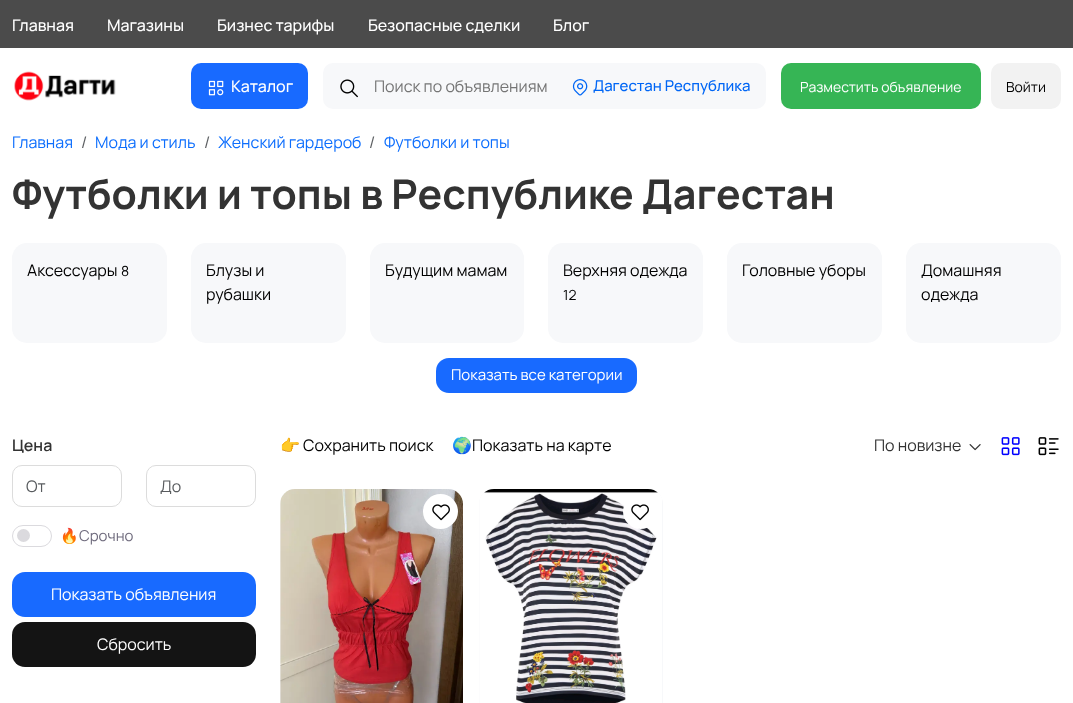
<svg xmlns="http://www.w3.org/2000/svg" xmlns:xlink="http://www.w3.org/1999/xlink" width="1073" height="703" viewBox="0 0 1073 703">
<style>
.cls-1{font:500 16px Manrope;fill:#ffffff}
.cls-2{font:16px Manrope;fill:#757575}
.cls-3{font:500 15px Manrope;fill:#0066f5}
.cls-4{font:14px Manrope;fill:#ffffff}
.cls-5{font:14px Manrope;fill:#000000}
.cls-6{font:16px Manrope;fill:#0d6efd}
.cls-7{font:16px Manrope;fill:#595c5f}
.cls-8{font:bold 41px Manrope;fill:#333333}
.cls-9{font:16px Manrope;fill:#000000}
.cls-10{font:15px Manrope;fill:#ffffff}
.cls-11{font:600 16px Manrope;fill:#333333}
.cls-12{font:15px Noto Color Emoji;fill:#6f6b7d}
.cls-13{font:15px Manrope;fill:#6f6b7d}
.cls-14{font:16px Manrope;fill:#ffffff}
.cls-15{font:16px Noto Color Emoji;fill:#000000}
.cls-16{font:16px Manrope;fill:#333333}
</style>
<rect width="100%" height="100%" fill="#ffffff"/>
<rect fill="#4b4b4b" x="0" y="0" width="1073" height="48"/>
<image xlink:href="image0.png" x="14" y="71" width="102" height="30"/>
<rect fill="#186aff" x="191" y="63" width="117" height="46" rx="10"/>
<image xlink:href="image1.png" x="208" y="80" width="16" height="16"/>
<rect fill="#f7f8fa" x="323" y="63" width="443" height="46" rx="10"/>
<image xlink:href="image2.png" x="340" y="79" width="18" height="19"/>
<image xlink:href="image3.png" x="572" y="79" width="16" height="17"/>
<rect fill="#36b555" x="781" y="63" width="200" height="46" rx="10"/>
<rect fill="#f2f2f2" x="991" y="63" width="70" height="46" rx="10"/>
<rect fill="#f7f8fa" x="12" y="243" width="155" height="100" rx="15"/>
<rect fill="#f7f8fa" x="191" y="243" width="155" height="100" rx="15"/>
<rect fill="#f7f8fa" x="370" y="243" width="154" height="100" rx="15"/>
<rect fill="#f7f8fa" x="548" y="243" width="155" height="100" rx="15"/>
<rect fill="#f7f8fa" x="727" y="243" width="155" height="100" rx="15"/>
<rect fill="#f7f8fa" x="906" y="243" width="155" height="100" rx="15"/>
<rect fill="#186aff" x="436" y="358" width="201" height="35" rx="13"/>
<rect fill="none" stroke="#dcdcdc" x="12.5" y="465.5" width="109" height="41" rx="9.5"/>
<rect fill="none" stroke="#dcdcdc" x="146.5" y="465.5" width="109" height="41" rx="9.5"/>
<rect fill="none" stroke="#dbdade" x="12.5" y="525.5" width="39" height="21" rx="10.5"/>
<circle fill="#dbdade" cx="23.5" cy="535.5" r="6.5"/>
<rect fill="#186aff" x="12" y="572" width="244" height="45" rx="13"/>
<rect fill="#141414" x="12" y="622" width="244" height="45" rx="13"/>
<image xlink:href="image4.png" x="969" y="444" width="12" height="7"/>
<image xlink:href="image5.png" x="1001" y="437" width="19" height="19"/>
<image xlink:href="image6.png" x="1038" y="437" width="21" height="19"/>
<rect fill="#f7f8fa" x="280" y="489" width="183" height="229" rx="15"/>
<image xlink:href="image7.png" x="280" y="489" width="183" height="214"/>
<circle fill="#ffffff" cx="440.5" cy="511.5" r="17.5"/>
<image xlink:href="image8.png" x="432" y="504" width="18" height="17"/>
<rect fill="#f7f8fa" x="479" y="489" width="184" height="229" rx="15"/>
<image xlink:href="image9.png" x="479" y="489" width="183" height="214"/>
<circle fill="#ffffff" cx="640.5" cy="511.5" r="17.5"/>
<image xlink:href="image8.png" x="631" y="504" width="18" height="17"/>
<text class="cls-1" x="12" y="31">Главная</text>
<text class="cls-1" x="107" y="31">Магазины</text>
<text class="cls-1" x="217" y="31">Бизнес тарифы</text>
<text class="cls-1" x="368" y="31">Безопасные сделки</text>
<text class="cls-1" x="553" y="31">Блог</text>
<text class="cls-1" x="231" y="92">Каталог</text>
<text class="cls-2" x="374" y="92">Поиск по объявлениям</text>
<text class="cls-3" x="593" y="91">Дагестан Республика</text>
<text class="cls-4" x="800" y="92">Разместить объявление</text>
<text class="cls-5" x="1006" y="92">Войти</text>
<text class="cls-6" x="12" y="148">Главная</text>
<text class="cls-7" x="81" y="148">/</text>
<text class="cls-6" x="95" y="148">Мода и стиль</text>
<text class="cls-7" x="204" y="148">/</text>
<text class="cls-6" x="218" y="148">Женский гардероб</text>
<text class="cls-7" x="369" y="148">/</text>
<text class="cls-6" x="384" y="148">Футболки и топы</text>
<text class="cls-8" x="12" y="209">Футболки и топы в Республике Дагестан</text>
<text class="cls-9" x="27" y="276">Аксессуары</text>
<text class="cls-5" x="121" y="276">8</text>
<text class="cls-9"><tspan x="206" y="276">Блузы и</tspan><tspan x="206" y="300">рубашки</tspan></text>
<text class="cls-9" x="385" y="276">Будущим мамам</text>
<text class="cls-9" x="563" y="276">Верхняя одежда</text>
<text class="cls-5" x="563" y="300">12</text>
<text class="cls-9" x="742" y="276">Головные уборы</text>
<text class="cls-9"><tspan x="921" y="276">Домашняя</tspan><tspan x="921" y="300">одежда</tspan></text>
<text class="cls-10" x="451" y="380">Показать все категории</text>
<text class="cls-11" x="12" y="451">Цена</text>
<text class="cls-7" x="26" y="492">От</text>
<text class="cls-7" x="160" y="492">До</text>
<text class="cls-12" x="60" y="541">🔥</text>
<text class="cls-13" x="79" y="541">Срочно</text>
<text class="cls-14" x="51" y="600">Показать объявления</text>
<text class="cls-14" x="97" y="650">Сбросить</text>
<text class="cls-15" x="280" y="451">👉</text>
<text class="cls-9" x="303" y="451">Сохранить поиск</text>
<text class="cls-15" x="452" y="451">🌍</text>
<text class="cls-9" x="472" y="451">Показать на карте</text>
<text class="cls-16" x="874" y="451">По новизне</text>
</svg>
